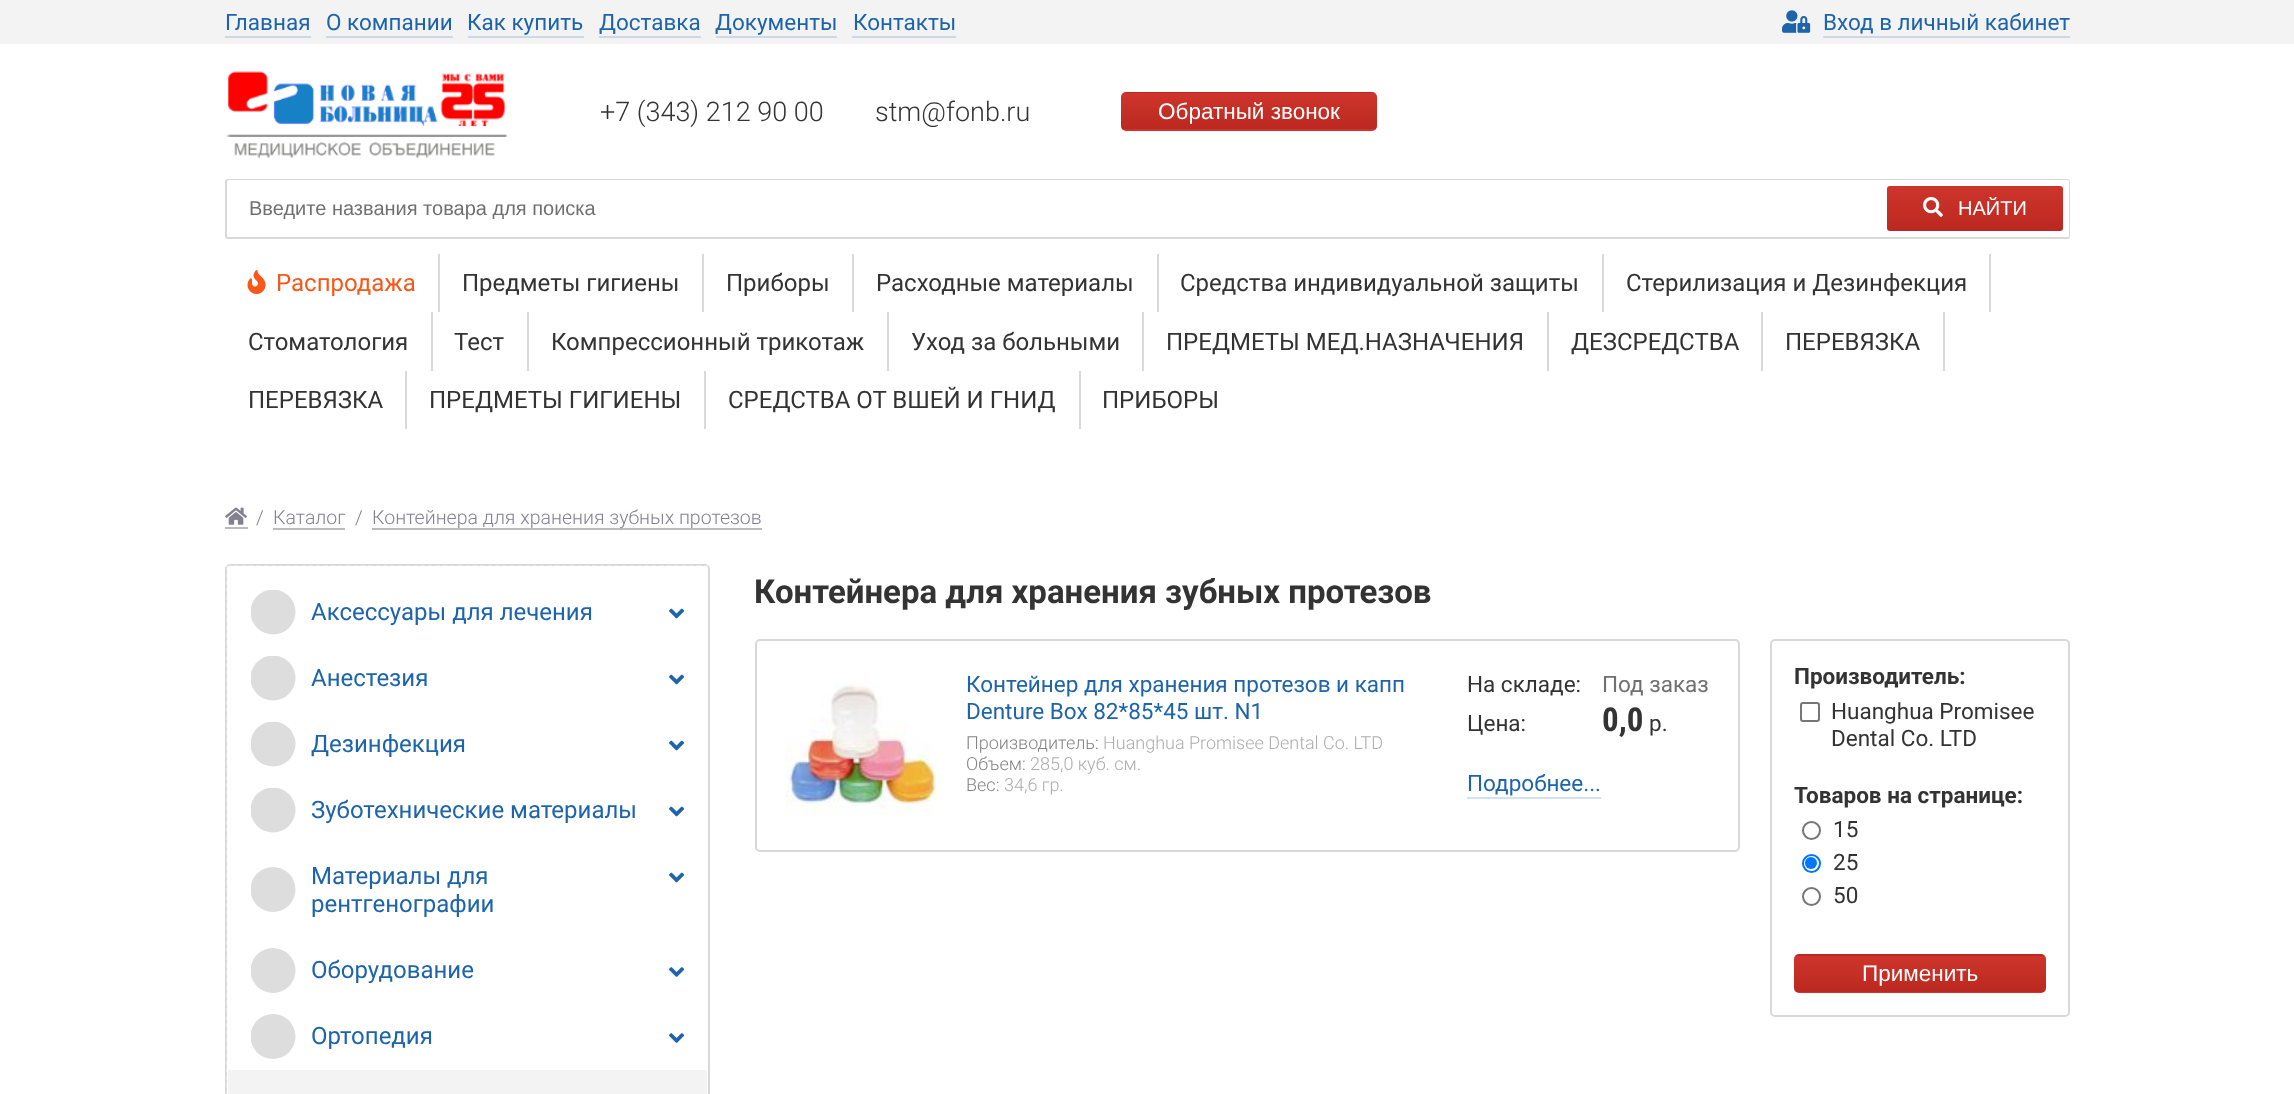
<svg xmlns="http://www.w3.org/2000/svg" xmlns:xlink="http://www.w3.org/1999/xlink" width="2294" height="1094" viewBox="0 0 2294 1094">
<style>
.cls-1{font:22.5px Roboto;fill:#1e64aa}
.cls-2{font:300 27px Roboto;fill:#333333}
.cls-3{font:22.5px Liberation Sans;fill:#ffffff}
.cls-4{font:20px Liberation Sans;fill:#707070}
.cls-5{font:20px Liberation Sans;fill:#ffffff}
.cls-6{font:24px Roboto;fill:#f75718}
.cls-7{font:24px Roboto;fill:#333333}
.cls-8{font:300 19.5px Roboto;fill:#84818f}
.cls-9{font:24px Roboto;fill:#1e64aa}
.cls-10{font:bold 33px Roboto;fill:#333333}
.cls-11{font:300 18px Roboto;fill:#848484}
.cls-12{font:300 18px Roboto;fill:#adadad}
.cls-13{font:22.5px Roboto;fill:#333333}
.cls-14{font:22.5px Roboto;fill:#707070}
.cls-15{font:bold 33px Roboto Condensed;fill:#333333}
.cls-16{font:bold 22.5px Roboto;fill:#333333}
</style>
<defs>
<clipPath id="clip1"><rect x="1121" y="92" width="256" height="39" rx="5"/></clipPath>
<linearGradient id="g1" gradientUnits="userSpaceOnUse" x1="1249" y1="57" x2="1249" y2="93"><stop offset="0" stop-color="#ce352c"/><stop offset="1" stop-color="#bb281f"/></linearGradient>
<linearGradient id="g2" gradientUnits="userSpaceOnUse" x1="1249" y1="93" x2="1249" y2="129"><stop offset="0" stop-color="#ce352c"/><stop offset="1" stop-color="#bb281f"/></linearGradient>
<linearGradient id="g3" gradientUnits="userSpaceOnUse" x1="1249" y1="129" x2="1249" y2="165"><stop offset="0" stop-color="#ce352c"/><stop offset="1" stop-color="#bb281f"/></linearGradient>
<linearGradient id="g4" gradientUnits="userSpaceOnUse" x1="1975" y1="186" x2="1975" y2="231"><stop offset="0" stop-color="#ce352c"/><stop offset="1" stop-color="#bb281f"/></linearGradient>
<clipPath id="clip2"><rect x="251" y="590" width="45" height="45"/></clipPath>
<clipPath id="clip3"><rect x="251" y="656" width="45" height="45"/></clipPath>
<clipPath id="clip4"><rect x="251" y="722" width="45" height="45"/></clipPath>
<clipPath id="clip5"><rect x="251" y="788" width="45" height="45"/></clipPath>
<clipPath id="clip6"><rect x="251" y="867" width="45" height="45"/></clipPath>
<clipPath id="clip7"><rect x="251" y="948" width="45" height="45"/></clipPath>
<clipPath id="clip8"><rect x="251" y="1014" width="45" height="45"/></clipPath>
<clipPath id="clip9"><rect x="1794" y="954" width="252" height="39" rx="5"/></clipPath>
<linearGradient id="g5" gradientUnits="userSpaceOnUse" x1="1920" y1="920" x2="1920" y2="956"><stop offset="0" stop-color="#ce352c"/><stop offset="1" stop-color="#bb281f"/></linearGradient>
<linearGradient id="g6" gradientUnits="userSpaceOnUse" x1="1920" y1="956" x2="1920" y2="992"><stop offset="0" stop-color="#ce352c"/><stop offset="1" stop-color="#bb281f"/></linearGradient>
<linearGradient id="g7" gradientUnits="userSpaceOnUse" x1="1920" y1="992" x2="1920" y2="1028"><stop offset="0" stop-color="#ce352c"/><stop offset="1" stop-color="#bb281f"/></linearGradient>
</defs>
<rect width="100%" height="100%" fill="#ffffff"/>
<rect fill="#f3f3f3" x="0" y="0" width="2294" height="44"/>
<rect fill="#cbd8e5" x="225" y="36" width="86" height="2"/>
<rect fill="#cbd8e5" x="326" y="36" width="127" height="2"/>
<rect fill="#cbd8e5" x="468" y="36" width="116" height="2"/>
<rect fill="#cbd8e5" x="599" y="36" width="102" height="2"/>
<rect fill="#cbd8e5" x="716" y="36" width="121" height="2"/>
<rect fill="#cbd8e5" x="852" y="36" width="104" height="2"/>
<image xlink:href="image0.png" x="1782" y="10" width="29" height="23"/>
<rect fill="#cbd8e5" x="1823" y="36" width="247" height="2"/>
<image xlink:href="image1.png" x="226" y="71" width="281" height="87"/>
<g clip-path="url(#clip1)">
<rect fill="url(#g1)" x="1121" y="92" width="256" height="1"/>
<rect fill="url(#g2)" x="1121" y="93" width="256" height="36"/>
<rect fill="url(#g3)" x="1121" y="129" width="256" height="2"/>
</g>
<rect fill="none" stroke="#d8d8d8" stroke-width="2" x="226" y="180" width="1843" height="58" rx="2"/>
<rect fill="#ffffff" x="227" y="180" width="1842" height="57" rx="1.5"/>
<rect fill="url(#g4)" x="1887" y="186" width="176" height="45" rx="3"/>
<image xlink:href="image2.png" x="1923" y="197" width="20" height="20"/>
<rect fill="#d9d9d9" x="438" y="254" width="2" height="58"/>
<image xlink:href="image3.png" x="247" y="270" width="19" height="24"/>
<rect fill="#d9d9d9" x="702" y="254" width="2" height="58"/>
<rect fill="#d9d9d9" x="852" y="254" width="2" height="58"/>
<rect fill="#d9d9d9" x="1157" y="254" width="2" height="58"/>
<rect fill="#d9d9d9" x="1602" y="254" width="2" height="58"/>
<rect fill="#d9d9d9" x="1989" y="254" width="2" height="58"/>
<rect fill="#d9d9d9" x="431" y="312" width="2" height="59"/>
<rect fill="#d9d9d9" x="527" y="312" width="2" height="59"/>
<rect fill="#d9d9d9" x="887" y="312" width="2" height="59"/>
<rect fill="#d9d9d9" x="1142" y="312" width="2" height="59"/>
<rect fill="#d9d9d9" x="1547" y="312" width="2" height="59"/>
<rect fill="#d9d9d9" x="1761" y="312" width="2" height="59"/>
<rect fill="#d9d9d9" x="1943" y="312" width="2" height="59"/>
<rect fill="#d9d9d9" x="405" y="371" width="2" height="58"/>
<rect fill="#d9d9d9" x="704" y="371" width="2" height="58"/>
<rect fill="#d9d9d9" x="1079" y="371" width="2" height="58"/>
<rect fill="#bbbbbb" x="225" y="527" width="23" height="2"/>
<image xlink:href="image4.png" x="225" y="507" width="22" height="18"/>
<rect fill="#bbbbbb" x="273" y="528" width="72" height="2"/>
<rect fill="#bbbbbb" x="372" y="528" width="390" height="2"/>
<rect fill="none" stroke="#d8d8d8" stroke-width="2" x="226" y="565" width="483" height="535" rx="4"/>
<path fill="none" stroke="#ffffff" stroke-opacity="0.4" stroke-width="1.5" stroke-dasharray="4.5 2.96" d="M226.5 566H708"/>
<path fill="none" stroke="#ffffff" stroke-opacity="0.4" stroke-width="1.5" stroke-dasharray="4.5 3" d="M707 565.5V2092.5"/>
<path fill="none" stroke="#ffffff" stroke-opacity="0.4" stroke-width="1.5" stroke-dasharray="4.5 3" d="M227 565.5V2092.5"/>
<g clip-path="url(#clip2)">
<circle fill="#dddddd" cx="273" cy="612" r="22.5"/>
</g>
<image xlink:href="image5.png" x="669" y="608" width="15" height="11"/>
<g clip-path="url(#clip3)">
<circle fill="#dddddd" cx="273" cy="678" r="22.5"/>
</g>
<image xlink:href="image5.png" x="669" y="674" width="15" height="11"/>
<g clip-path="url(#clip4)">
<circle fill="#dddddd" cx="273" cy="744" r="22.5"/>
</g>
<image xlink:href="image5.png" x="669" y="740" width="15" height="11"/>
<g clip-path="url(#clip5)">
<circle fill="#dddddd" cx="273" cy="810" r="22.5"/>
</g>
<image xlink:href="image5.png" x="669" y="806" width="15" height="11"/>
<g clip-path="url(#clip6)">
<circle fill="#dddddd" cx="273" cy="889.5" r="22.5"/>
</g>
<image xlink:href="image5.png" x="669" y="872" width="15" height="11"/>
<g clip-path="url(#clip7)">
<circle fill="#dddddd" cx="273" cy="970.5" r="22.5"/>
</g>
<image xlink:href="image6.png" x="669" y="967" width="15" height="10"/>
<g clip-path="url(#clip8)">
<circle fill="#dddddd" cx="273" cy="1036.5" r="22.5"/>
</g>
<image xlink:href="image6.png" x="669" y="1033" width="15" height="10"/>
<rect fill="#f3f3f3" x="228" y="1070" width="479" height="24"/>
<rect fill="none" stroke="#d8d8d8" stroke-width="2" x="756" y="640" width="983" height="211" rx="4"/>
<image xlink:href="image7.png" x="786" y="683" width="150" height="133"/>
<rect fill="#d4e2ef" x="1467" y="797" width="134" height="2"/>
<rect fill="none" stroke="#d8d8d8" stroke-width="2" x="1771" y="640" width="298" height="376" rx="4"/>
<rect fill="none" stroke="#767676" stroke-width="2" x="1801" y="703" width="18" height="18" rx="2"/>
<circle fill="none" stroke="#767676" stroke-width="2" cx="1811.5" cy="830.5" r="8.5"/>
<circle fill="none" stroke="#0075ff" stroke-width="2" cx="1811.5" cy="863.5" r="8.5"/>
<circle fill="#0075ff" cx="1811" cy="863" r="6"/>
<circle fill="none" stroke="#767676" stroke-width="2" cx="1811.5" cy="896.5" r="8.5"/>
<g clip-path="url(#clip9)">
<rect fill="url(#g5)" x="1794" y="954" width="252" height="2"/>
<rect fill="url(#g6)" x="1794" y="956" width="252" height="36"/>
<rect fill="url(#g7)" x="1794" y="992" width="252" height="1"/>
</g>
<text class="cls-1" x="225" y="30">Главная</text>
<text class="cls-1" x="326" y="30">О компании</text>
<text class="cls-1" x="467" y="30">Как купить</text>
<text class="cls-1" x="599" y="30">Доставка</text>
<text class="cls-1" x="715" y="30">Документы</text>
<text class="cls-1" x="853" y="30">Контакты</text>
<text class="cls-1" x="1823" y="30">Вход в личный кабинет</text>
<text class="cls-2" x="600" y="121">+7 (343) 212 90 00</text>
<text class="cls-2" x="875" y="121">stm@fonb.ru</text>
<text class="cls-3" x="1158" y="119">Обратный звонок</text>
<text class="cls-4" x="249" y="215">Введите названия товара для поиска</text>
<text class="cls-5" x="1958" y="215">НАЙТИ</text>
<text class="cls-6" x="276" y="291">Распродажа</text>
<text class="cls-7" x="462" y="291">Предметы гигиены</text>
<text class="cls-7" x="726" y="291">Приборы</text>
<text class="cls-7" x="876" y="291">Расходные материалы</text>
<text class="cls-7" x="1180" y="291">Средства индивидуальной защиты</text>
<text class="cls-7" x="1626" y="291">Стерилизация и Дезинфекция</text>
<text class="cls-7" x="248" y="350">Стоматология</text>
<text class="cls-7" x="454" y="350">Тест</text>
<text class="cls-7" x="551" y="350">Компрессионный трикотаж</text>
<text class="cls-7" x="911" y="350">Уход за больными</text>
<text class="cls-7" x="1166" y="350">ПРЕДМЕТЫ МЕД.НАЗНАЧЕНИЯ</text>
<text class="cls-7" x="1571" y="350">ДЕЗСРЕДСТВА</text>
<text class="cls-7" x="1785" y="350">ПЕРЕВЯЗКА</text>
<text class="cls-7" x="248" y="408">ПЕРЕВЯЗКА</text>
<text class="cls-7" x="429" y="408">ПРЕДМЕТЫ ГИГИЕНЫ</text>
<text class="cls-7" x="728" y="408">СРЕДСТВА ОТ ВШЕЙ И ГНИД</text>
<text class="cls-7" x="1102" y="408">ПРИБОРЫ</text>
<text class="cls-8" x="256" y="524">/</text>
<text class="cls-8" x="273" y="524">Каталог</text>
<text class="cls-8" x="355" y="524">/</text>
<text class="cls-8" x="372" y="524">Контейнера для хранения зубных протезов</text>
<text class="cls-9" x="311" y="620">Аксессуары для лечения</text>
<text class="cls-9" x="311" y="686">Анестезия</text>
<text class="cls-9" x="311" y="752">Дезинфекция</text>
<text class="cls-9" x="311" y="818">Зуботехнические материалы</text>
<text class="cls-9"><tspan x="311" y="884">Материалы для</tspan><tspan x="311" y="912">рентгенографии</tspan></text>
<text class="cls-9" x="311" y="978">Оборудование</text>
<text class="cls-9" x="311" y="1044">Ортопедия</text>
<text class="cls-10" x="754" y="603">Контейнера для хранения зубных протезов</text>
<text class="cls-1"><tspan x="966" y="692">Контейнер для хранения протезов и капп</tspan><tspan x="966" y="719">Denture Box 82*85*45 шт. N1</tspan></text>
<text class="cls-11" x="966" y="749">Производитель:</text>
<text class="cls-12" x="1103" y="749">Huanghua Promisee Dental Co. LTD</text>
<text class="cls-11" x="966" y="770">Объем:</text>
<text class="cls-12" x="1030" y="770">285,0 куб. см.</text>
<text class="cls-11" x="966" y="791">Вес:</text>
<text class="cls-12" x="1004" y="791">34,6 гр.</text>
<text class="cls-13" x="1467" y="692">На складе:</text>
<text class="cls-14" x="1602" y="692">Под заказ</text>
<text class="cls-13" x="1467" y="731">Цена:</text>
<text class="cls-15" x="1602" y="731">0,0</text>
<text class="cls-13" x="1649" y="731">р.</text>
<text class="cls-1" x="1467" y="791">Подробнее...</text>
<text class="cls-16" x="1794" y="684">Производитель:</text>
<text class="cls-13"><tspan x="1831" y="719">Huanghua Promisee</tspan><tspan x="1831" y="746">Dental Co. LTD</tspan></text>
<text class="cls-16" x="1794" y="803">Товаров на странице:</text>
<text class="cls-13"><tspan x="1833" y="837">15</tspan><tspan x="1833" y="870">25</tspan><tspan x="1833" y="903">50</tspan></text>
<text class="cls-3" x="1862" y="981">Применить</text>
</svg>
